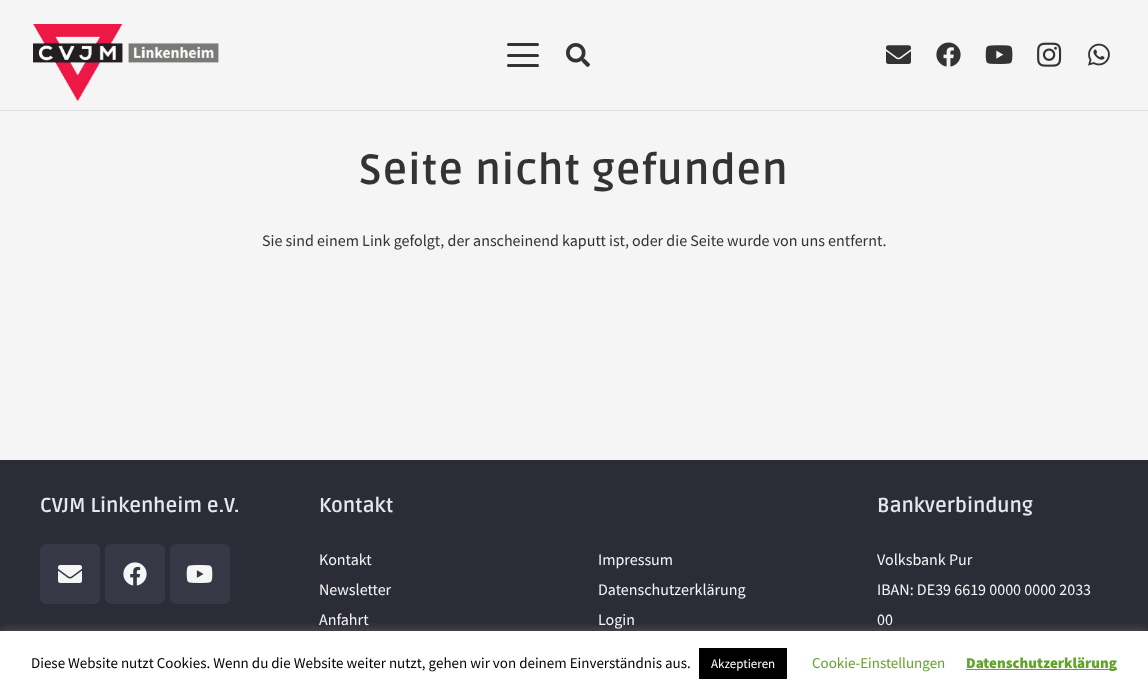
<svg xmlns="http://www.w3.org/2000/svg" xmlns:xlink="http://www.w3.org/1999/xlink" width="1148" height="696" viewBox="0 0 1148 696">
<style>
.cls-1{font:bold 42px Ruda;letter-spacing:0.8px;fill:#333333}
.cls-2{font:16px Source Sans Pro;fill:#333333}
.cls-3{font:bold 20px Ruda;fill:#e3e7f0}
.cls-4{font:16px Source Sans Pro;fill:#f5f5f5}
.cls-5{font:15px Source Sans Pro;fill:#000000}
.cls-6{font:13px Source Sans Pro;fill:#ffffff}
.cls-7{font:15px Source Sans Pro;fill:#62a329}
.cls-8{font:900 15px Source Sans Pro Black;fill:#62a329}
</style>
<rect width="100%" height="100%" fill="#f5f5f5"/>
<rect fill="#e1e1e1" x="0" y="110" width="1148" height="1"/>
<image xlink:href="image0.png" x="33" y="24" width="186" height="78"/>
<rect fill="#333333" x="507" y="54" width="32" height="3" rx="1.5"/>
<rect fill="#333333" x="507" y="43" width="32" height="3" rx="1.5"/>
<rect fill="#333333" x="507" y="64" width="32" height="3" rx="1.5"/>
<image xlink:href="image1.png" x="566" y="43" width="24" height="24"/>
<image xlink:href="image2.png" x="886" y="45" width="25" height="19"/>
<image xlink:href="image3.png" x="936" y="42" width="25" height="25"/>
<image xlink:href="image4.png" x="985" y="45" width="28" height="19"/>
<image xlink:href="image5.png" x="1037" y="42" width="25" height="25"/>
<image xlink:href="image6.png" x="1088" y="43" width="22" height="23"/>
<rect fill="#2b2c36" x="0" y="460" width="1148" height="171"/>
<rect fill="#363845" x="40" y="544" width="60" height="60" rx="6"/>
<image xlink:href="image7.png" x="58" y="565" width="24" height="18"/>
<rect fill="#363845" x="105" y="544" width="60" height="60" rx="6"/>
<image xlink:href="image8.png" x="123" y="562" width="24" height="24"/>
<rect fill="#363845" x="170" y="544" width="60" height="60" rx="6"/>
<image xlink:href="image9.png" x="186" y="565" width="27" height="18"/>
<rect fill="#acabab" fill-opacity="0.3" filter="blur(5px)" x="0" y="630" width="1148" height="65"/>
<rect fill="#ffffff" x="0" y="631" width="1148" height="65"/>
<rect fill="#000000" x="699" y="648" width="88" height="31"/>
<rect fill="#62a329" x="966" y="669" width="151" height="1"/>
<text class="cls-1" x="359" y="184">Seite nicht gefunden</text>
<text class="cls-2" x="262" y="246">Sie sind einem Link gefolgt, der anscheinend kaputt ist, oder die Seite wurde von uns entfernt.</text>
<text class="cls-3" x="40" y="512">CVJM Linkenheim e.V.</text>
<text class="cls-3" x="319" y="512">Kontakt</text>
<text class="cls-4"><tspan x="319" y="565">Kontakt</tspan><tspan x="319" y="595">Newsletter</tspan><tspan x="319" y="625">Anfahrt</tspan></text>
<text class="cls-4"><tspan x="598" y="565">Impressum</tspan><tspan x="598" y="595">Datenschutzerklärung</tspan><tspan x="598" y="625">Login</tspan></text>
<text class="cls-3" x="877" y="512">Bankverbindung</text>
<text class="cls-4"><tspan x="877" y="565">Volksbank Pur</tspan><tspan x="877" y="595">IBAN: DE39 6619 0000 0000 2033</tspan><tspan x="877" y="625">00</tspan></text>
<text class="cls-5" x="31" y="668">Diese Website nutzt Cookies. Wenn du die Website weiter nutzt, gehen wir von deinem Einverständnis aus.</text>
<text class="cls-6" x="711" y="668">Akzeptieren</text>
<text class="cls-7" x="812" y="668">Cookie-Einstellungen</text>
<text class="cls-8" x="966" y="668">Datenschutzerklärung</text>
</svg>
